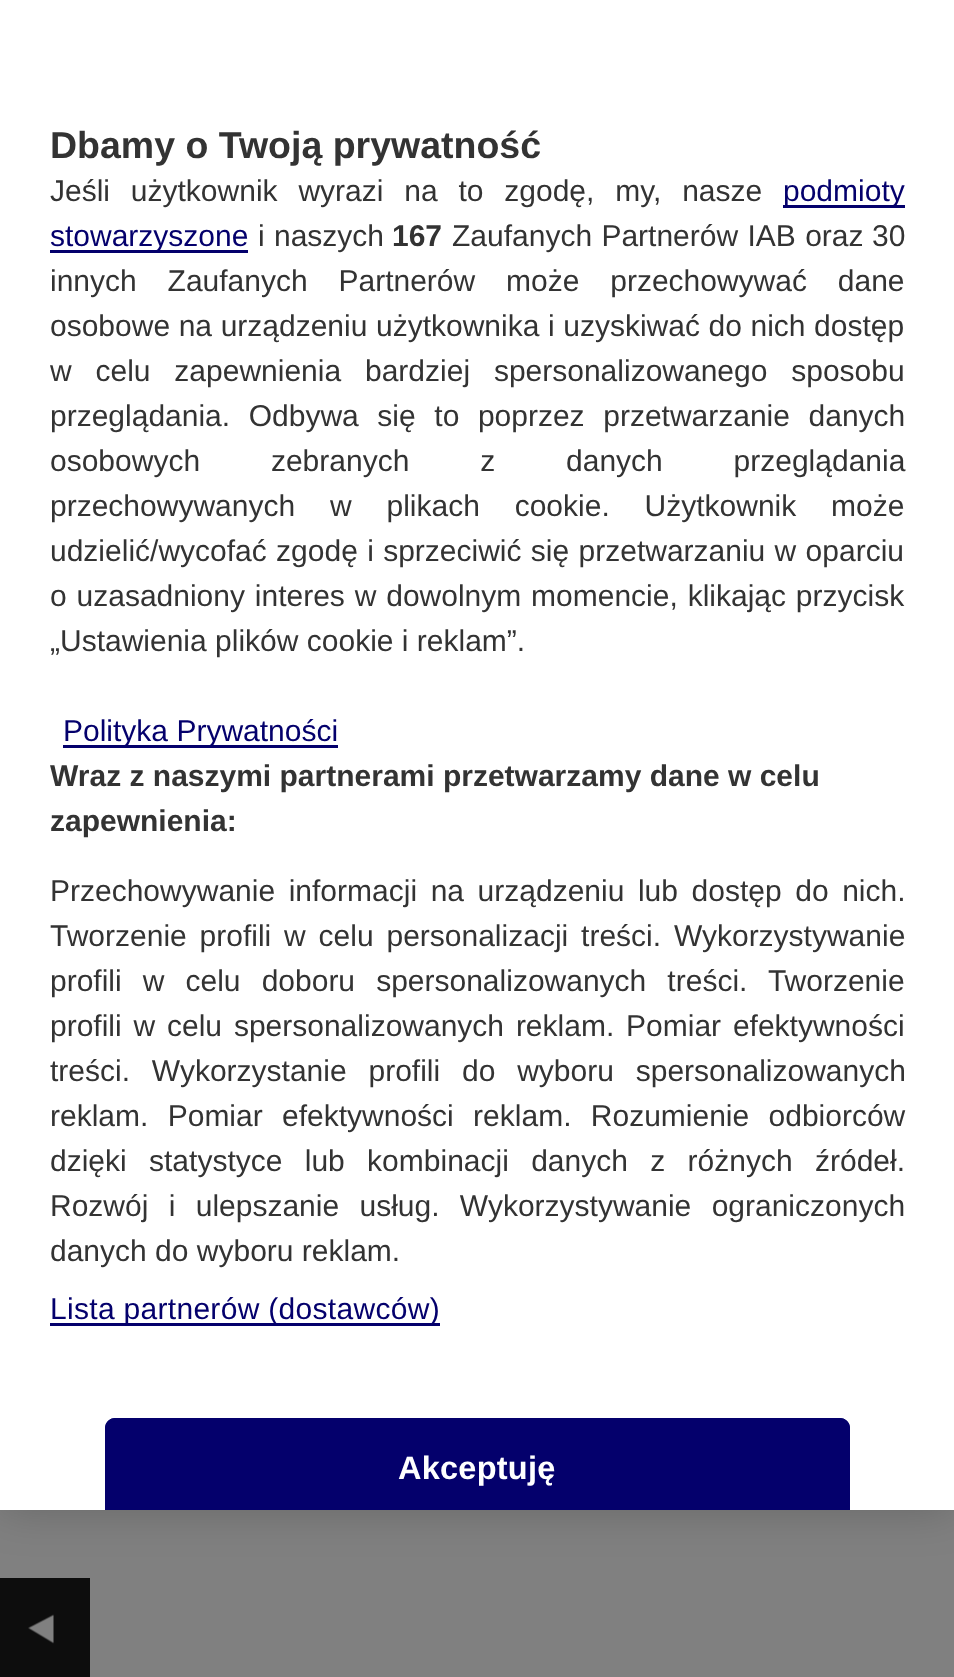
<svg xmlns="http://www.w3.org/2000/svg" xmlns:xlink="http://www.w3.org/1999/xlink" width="954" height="1677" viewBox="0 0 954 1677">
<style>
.cls-1{font:bold 37.5px Liberation Sans;fill:#333333}
.cls-2{font:30px Liberation Sans;fill:#333333}
.cls-3{font:30px Liberation Sans;fill:#04006c}
.cls-4{font:bold 30px Liberation Sans;fill:#333333}
.cls-5{font:30px Liberation Sans;letter-spacing:0.3px;fill:#04006c}
.cls-6{font:bold 32.5px Liberation Sans;letter-spacing:0.25px;fill:#ffffff}
</style>
<defs>
<clipPath id="clip1"><rect x="0" y="0" width="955" height="1510"/></clipPath>
</defs>
<rect width="100%" height="100%" fill="#808080"/>
<rect fill="#0d0d0d" x="0" y="1578" width="90" height="99"/>
<rect fill="#000000" fill-opacity="0.2" filter="blur(22.5px)" x="0" y="0" width="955" height="1510"/>
<rect fill="#ffffff" x="0" y="0" width="954" height="1510"/>
<rect fill="#04006c" x="783" y="205" width="122" height="3"/>
<rect fill="#04006c" x="50" y="250" width="198" height="3"/>
<rect fill="#04006c" x="63" y="745" width="275" height="3"/>
<rect fill="#04006c" x="50" y="1323" width="390" height="3"/>
<path fill="#04006c" d="M115 1418H840C845.5 1418 850 1422.5 850 1428V1510H105V1428C105 1422.5 109.5 1418 115 1418Z"/>
<g clip-path="url(#clip1)">
<rect fill="none" stroke="#04006c" stroke-width="3" x="106.5" y="1419.5" width="742" height="99" rx="8.5"/>
</g>
<image xlink:href="image0.png" x="28" y="1614" width="26" height="30"/>
<text class="cls-1" x="50" y="158">Dbamy o Twoją prywatność</text>
<text class="cls-2" x="50" y="201" word-spacing="12.5">Jeśli użytkownik wyrazi na to zgodę, my, nasze</text>
<text class="cls-3" x="783" y="201">podmioty</text>
<text class="cls-3" x="50" y="246">stowarzyszone</text>
<text class="cls-2" x="258" y="246" word-spacing="1">i naszych</text>
<text class="cls-4" x="392" y="246">167</text>
<text class="cls-2" x="452" y="246" word-spacing="1">Zaufanych Partnerów IAB oraz</text>
<text class="cls-2" x="872" y="246">30</text>
<text class="cls-2"><tspan x="50" y="291" word-spacing="22.5">innych Zaufanych Partnerów może przechowywać dane</tspan><tspan x="50" y="336" word-spacing="0.25">osobowe na urządzeniu użytkownika i uzyskiwać do nich dostęp</tspan><tspan x="50" y="381" word-spacing="15.5">w celu zapewnienia bardziej spersonalizowanego sposobu</tspan><tspan x="50" y="426" word-spacing="10.25">przeglądania. Odbywa się to poprzez przetwarzanie danych</tspan><tspan x="50" y="471" word-spacing="62.5">osobowych zebranych z danych przeglądania</tspan><tspan x="50" y="516" word-spacing="26.5">przechowywanych w plikach cookie. Użytkownik może</tspan><tspan x="50" y="561" word-spacing="1">udzielić/wycofać zgodę i sprzeciwić się przetwarzaniu w oparciu</tspan><tspan x="50" y="606" word-spacing="1.5">o uzasadniony interes w dowolnym momencie, klikając przycisk</tspan><tspan x="50" y="651">„Ustawienia plików cookie i reklam”.</tspan></text>
<text class="cls-3" x="63" y="741">Polityka Prywatności</text>
<text class="cls-4"><tspan x="50" y="786">Wraz z naszymi partnerami przetwarzamy dane w celu</tspan><tspan x="50" y="831">zapewnienia:</tspan></text>
<text class="cls-2"><tspan x="50" y="901" word-spacing="5.25">Przechowywanie informacji na urządzeniu lub dostęp do nich.</tspan><tspan x="50" y="946" word-spacing="4.5">Tworzenie profili w celu personalizacji treści. Wykorzystywanie</tspan><tspan x="50" y="991" word-spacing="12.75">profili w celu doboru spersonalizowanych treści. Tworzenie</tspan><tspan x="50" y="1036" word-spacing="3.5">profili w celu spersonalizowanych reklam. Pomiar efektywności</tspan><tspan x="50" y="1081" word-spacing="13.5">treści. Wykorzystanie profili do wyboru spersonalizowanych</tspan><tspan x="50" y="1126" word-spacing="11">reklam. Pomiar efektywności reklam. Rozumienie odbiorców</tspan><tspan x="50" y="1171" word-spacing="14">dzięki statystyce lub kombinacji danych z różnych źródeł.</tspan><tspan x="50" y="1216" word-spacing="12">Rozwój i ulepszanie usług. Wykorzystywanie ograniczonych</tspan><tspan x="50" y="1261">danych do wyboru reklam.</tspan></text>
<text class="cls-5" x="50" y="1319">Lista partnerów (dostawców)</text>
<text class="cls-6" x="398" y="1479">Akceptuję</text>
</svg>
